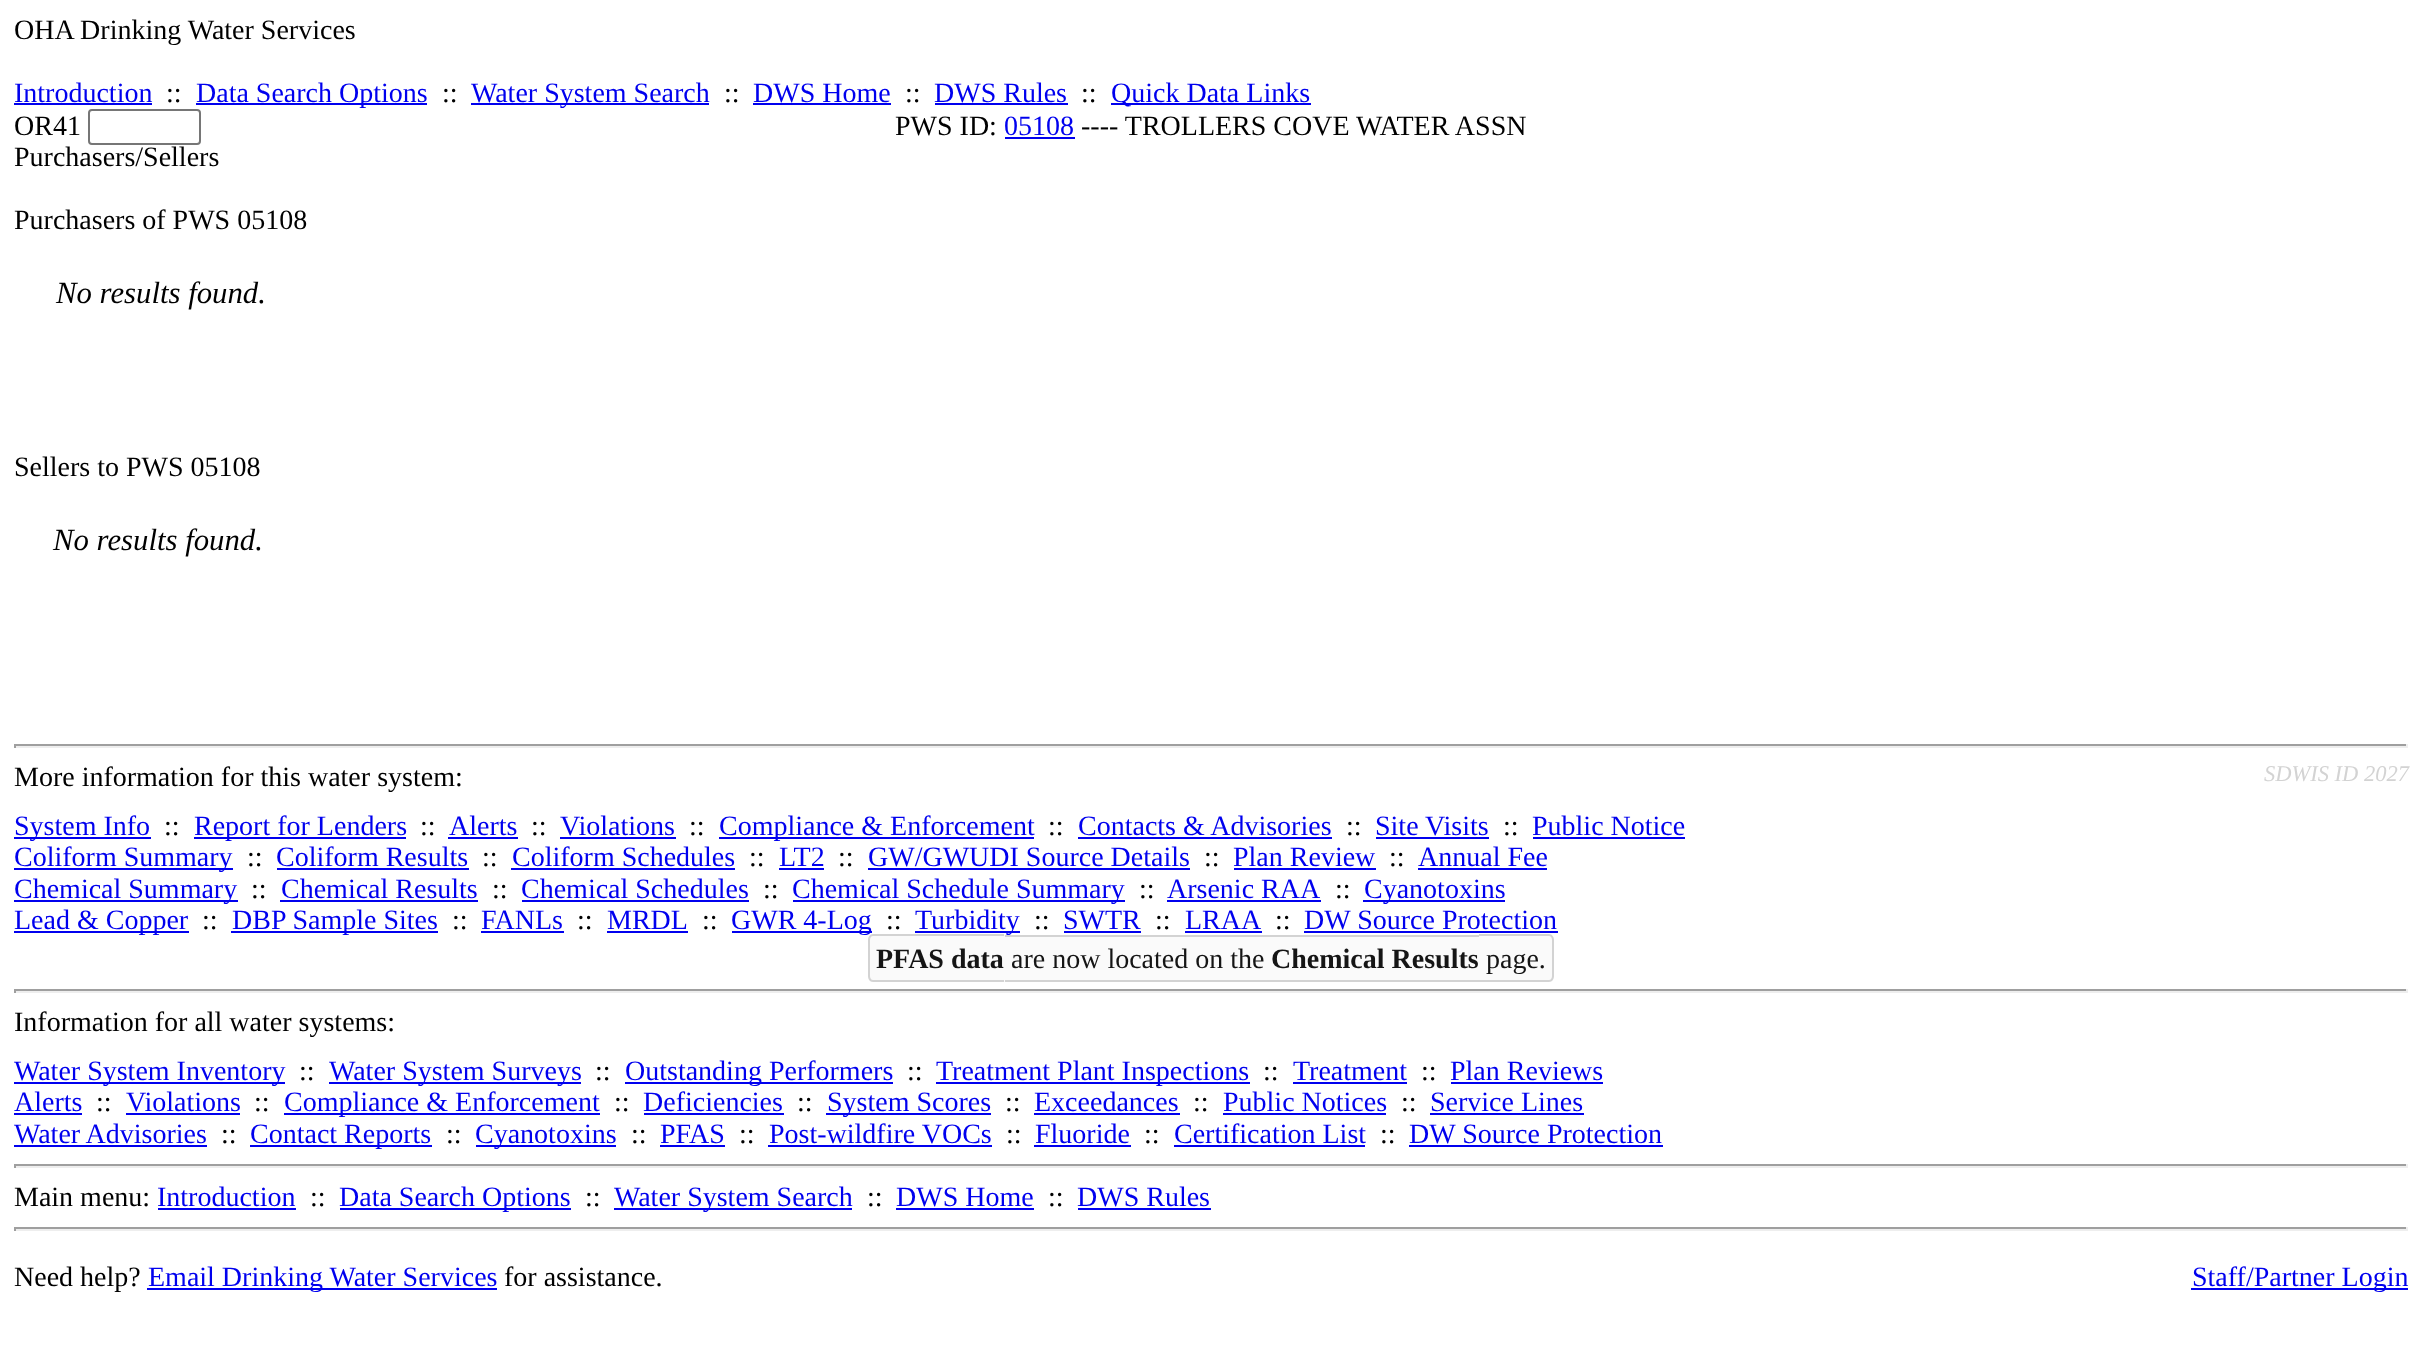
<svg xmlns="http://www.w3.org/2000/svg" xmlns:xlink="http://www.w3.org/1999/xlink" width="2422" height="1353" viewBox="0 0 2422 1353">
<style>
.cls-1{font:28px Liberation Serif;fill:#000000}
.cls-2{font:28px Liberation Serif;fill:#0000ee}
.cls-3{font:italic 30.75px Liberation Serif;fill:#000000}
.cls-4{font:italic 22.5px Liberation Serif;fill:#d3d3d3}
.cls-5{font:bold 28px Liberation Serif;fill:#151515}
.cls-6{font:28px Liberation Serif;fill:#151515}
</style>
<rect width="100%" height="100%" fill="#ffffff"/>
<rect fill="#0000ee" x="14" y="103" width="138" height="2"/>
<rect fill="#0000ee" x="196" y="103" width="231" height="2"/>
<rect fill="#0000ee" x="471" y="103" width="238" height="2"/>
<rect fill="#0000ee" x="753" y="103" width="138" height="2"/>
<rect fill="#0000ee" x="935" y="103" width="133" height="2"/>
<rect fill="#0000ee" x="1111" y="103" width="200" height="2"/>
<rect fill="none" stroke="#767676" stroke-width="2" x="89" y="110" width="111" height="34" rx="3"/>
<rect fill="#0000ee" x="1005" y="137" width="70" height="2"/>
<rect fill="#9f9f9f" x="14" y="744" width="2394" height="2"/>
<rect fill="#eeeeee" x="2406" y="744" width="2" height="4"/>
<rect fill="#eeeeee" x="14" y="746" width="2394" height="2"/>
<rect fill="#9f9f9f" x="14" y="744" width="2" height="4"/>
<rect fill="#0000ee" x="14" y="837" width="137" height="2"/>
<rect fill="#0000ee" x="194" y="837" width="212" height="2"/>
<rect fill="#0000ee" x="448" y="837" width="70" height="2"/>
<rect fill="#0000ee" x="560" y="837" width="116" height="2"/>
<rect fill="#0000ee" x="719" y="837" width="315" height="2"/>
<rect fill="#0000ee" x="1078" y="837" width="254" height="2"/>
<rect fill="#0000ee" x="1376" y="837" width="113" height="2"/>
<rect fill="#0000ee" x="1533" y="837" width="152" height="2"/>
<rect fill="#0000ee" x="14" y="868" width="219" height="2"/>
<rect fill="#0000ee" x="277" y="868" width="192" height="2"/>
<rect fill="#0000ee" x="511" y="868" width="224" height="2"/>
<rect fill="#0000ee" x="779" y="868" width="45" height="2"/>
<rect fill="#0000ee" x="868" y="868" width="322" height="2"/>
<rect fill="#0000ee" x="1234" y="868" width="142" height="2"/>
<rect fill="#0000ee" x="1418" y="868" width="129" height="2"/>
<rect fill="#0000ee" x="14" y="900" width="224" height="2"/>
<rect fill="#0000ee" x="280" y="900" width="198" height="2"/>
<rect fill="#0000ee" x="522" y="900" width="227" height="2"/>
<rect fill="#0000ee" x="793" y="900" width="332" height="2"/>
<rect fill="#0000ee" x="1167" y="900" width="154" height="2"/>
<rect fill="#0000ee" x="1363" y="900" width="142" height="2"/>
<rect fill="#0000ee" x="14" y="931" width="175" height="2"/>
<rect fill="#0000ee" x="231" y="931" width="207" height="2"/>
<rect fill="#0000ee" x="481" y="931" width="83" height="2"/>
<rect fill="#0000ee" x="607" y="931" width="81" height="2"/>
<rect fill="#0000ee" x="732" y="931" width="140" height="2"/>
<rect fill="#0000ee" x="915" y="931" width="105" height="2"/>
<rect fill="#0000ee" x="1064" y="931" width="77" height="2"/>
<rect fill="#0000ee" x="1185" y="931" width="77" height="2"/>
<rect fill="#0000ee" x="1304" y="931" width="254" height="2"/>
<rect fill="#fafafa" x="1005" y="937" width="474" height="43"/>
<path fill="#fafafa" d="M1479 935H1549C1552 935 1554 937 1554 940V977C1554 980 1552 982 1549 982H1479Z"/>
<path fill="#d3d3d3" fill-rule="evenodd" d="M1479 934H1549C1552 934 1554 937 1554 940V976C1554 979 1552 982 1549 982H1479ZM1479 936H1549C1551 936 1552 938 1552 940V976C1552 978 1551 980 1549 980H1479Z"/>
<rect fill="#d3d3d3" x="1005" y="980" width="474" height="2"/>
<rect fill="#9f9f9f" x="14" y="989" width="2394" height="2"/>
<rect fill="#eeeeee" x="2406" y="989" width="2" height="4"/>
<rect fill="#eeeeee" x="14" y="991" width="2394" height="2"/>
<rect fill="#9f9f9f" x="14" y="989" width="2" height="4"/>
<rect fill="#0000ee" x="14" y="1082" width="271" height="2"/>
<rect fill="#0000ee" x="329" y="1082" width="252" height="2"/>
<rect fill="#0000ee" x="625" y="1082" width="268" height="2"/>
<rect fill="#0000ee" x="936" y="1082" width="314" height="2"/>
<rect fill="#0000ee" x="1293" y="1082" width="114" height="2"/>
<rect fill="#0000ee" x="1451" y="1082" width="152" height="2"/>
<rect fill="#0000ee" x="14" y="1113" width="68" height="2"/>
<rect fill="#0000ee" x="126" y="1113" width="114" height="2"/>
<rect fill="#0000ee" x="284" y="1113" width="316" height="2"/>
<rect fill="#0000ee" x="644" y="1113" width="140" height="2"/>
<rect fill="#0000ee" x="826" y="1113" width="165" height="2"/>
<rect fill="#0000ee" x="1034" y="1113" width="146" height="2"/>
<rect fill="#0000ee" x="1223" y="1113" width="163" height="2"/>
<rect fill="#0000ee" x="1430" y="1113" width="154" height="2"/>
<rect fill="#0000ee" x="14" y="1145" width="193" height="2"/>
<rect fill="#0000ee" x="250" y="1145" width="182" height="2"/>
<rect fill="#0000ee" x="476" y="1145" width="140" height="2"/>
<rect fill="#0000ee" x="660" y="1145" width="65" height="2"/>
<rect fill="#0000ee" x="768" y="1145" width="224" height="2"/>
<rect fill="#0000ee" x="1034" y="1145" width="97" height="2"/>
<rect fill="#0000ee" x="1174" y="1145" width="191" height="2"/>
<rect fill="#0000ee" x="1409" y="1145" width="254" height="2"/>
<rect fill="#9f9f9f" x="14" y="1164" width="2394" height="2"/>
<rect fill="#eeeeee" x="2406" y="1164" width="2" height="4"/>
<rect fill="#eeeeee" x="14" y="1166" width="2394" height="2"/>
<rect fill="#9f9f9f" x="14" y="1164" width="2" height="4"/>
<rect fill="#0000ee" x="158" y="1208" width="138" height="2"/>
<rect fill="#0000ee" x="340" y="1208" width="231" height="2"/>
<rect fill="#0000ee" x="614" y="1208" width="238" height="2"/>
<rect fill="#0000ee" x="896" y="1208" width="138" height="2"/>
<rect fill="#0000ee" x="1078" y="1208" width="133" height="2"/>
<rect fill="#9f9f9f" x="14" y="1227" width="2394" height="2"/>
<rect fill="#eeeeee" x="2406" y="1227" width="2" height="4"/>
<rect fill="#eeeeee" x="14" y="1229" width="2394" height="2"/>
<rect fill="#9f9f9f" x="14" y="1227" width="2" height="4"/>
<rect fill="#0000ee" x="147" y="1288" width="350" height="2"/>
<rect fill="#0000ee" x="2191" y="1288" width="217" height="2"/>
<text class="cls-1" x="14" y="39">OHA Drinking Water Services</text>
<text class="cls-2" x="14" y="102">Introduction</text>
<text class="cls-1" x="166" y="102">::</text>
<text class="cls-2" x="196" y="102">Data Search Options</text>
<text class="cls-1" x="442" y="102">::</text>
<text class="cls-2" x="471" y="102">Water System Search</text>
<text class="cls-1" x="724" y="102">::</text>
<text class="cls-2" x="753" y="102">DWS Home</text>
<text class="cls-1" x="905" y="102">::</text>
<text class="cls-2" x="934" y="102">DWS Rules</text>
<text class="cls-1" x="1081" y="102">::</text>
<text class="cls-2" x="1111" y="102">Quick Data Links</text>
<text class="cls-1" x="14" y="135">OR41</text>
<text class="cls-1" x="895" y="135">PWS ID:</text>
<text class="cls-2" x="1004" y="135">05108</text>
<text class="cls-1" x="1081" y="135">---- TROLLERS COVE WATER ASSN</text>
<text class="cls-1" x="14" y="166">Purchasers/Sellers</text>
<text class="cls-1" x="14" y="229">Purchasers of PWS 05108</text>
<text class="cls-3" x="56" y="303">No results found.</text>
<text class="cls-1" x="14" y="476">Sellers to PWS 05108</text>
<text class="cls-3" x="53" y="550">No results found.</text>
<text class="cls-1" x="14" y="786">More information for this water system:</text>
<text class="cls-4" x="2264" y="781">SDWIS ID 2027</text>
<text class="cls-2" x="14" y="835">System Info</text>
<text class="cls-1" x="164" y="835">::</text>
<text class="cls-2" x="194" y="835">Report for Lenders</text>
<text class="cls-1" x="420" y="835">::</text>
<text class="cls-2" x="449" y="835">Alerts</text>
<text class="cls-1" x="531" y="835">::</text>
<text class="cls-2" x="560" y="835">Violations</text>
<text class="cls-1" x="689" y="835">::</text>
<text class="cls-2" x="719" y="835">Compliance &amp; Enforcement</text>
<text class="cls-1" x="1048" y="835">::</text>
<text class="cls-2" x="1078" y="835">Contacts &amp; Advisories</text>
<text class="cls-1" x="1346" y="835">::</text>
<text class="cls-2" x="1375" y="835">Site Visits</text>
<text class="cls-1" x="1503" y="835">::</text>
<text class="cls-2" x="1532" y="835">Public Notice</text>
<text class="cls-2" x="14" y="866">Coliform Summary</text>
<text class="cls-1" x="247" y="866">::</text>
<text class="cls-2" x="276" y="866">Coliform Results</text>
<text class="cls-1" x="482" y="866">::</text>
<text class="cls-2" x="512" y="866">Coliform Schedules</text>
<text class="cls-1" x="749" y="866">::</text>
<text class="cls-2" x="779" y="866">LT2</text>
<text class="cls-1" x="838" y="866">::</text>
<text class="cls-2" x="868" y="866">GW/GWUDI Source Details</text>
<text class="cls-1" x="1204" y="866">::</text>
<text class="cls-2" x="1233" y="866">Plan Review</text>
<text class="cls-1" x="1389" y="866">::</text>
<text class="cls-2" x="1418" y="866">Annual Fee</text>
<text class="cls-2" x="14" y="898">Chemical Summary</text>
<text class="cls-1" x="251" y="898">::</text>
<text class="cls-2" x="281" y="898">Chemical Results</text>
<text class="cls-1" x="492" y="898">::</text>
<text class="cls-2" x="521" y="898">Chemical Schedules</text>
<text class="cls-1" x="763" y="898">::</text>
<text class="cls-2" x="792" y="898">Chemical Schedule Summary</text>
<text class="cls-1" x="1139" y="898">::</text>
<text class="cls-2" x="1167" y="898">Arsenic RAA</text>
<text class="cls-1" x="1335" y="898">::</text>
<text class="cls-2" x="1364" y="898">Cyanotoxins</text>
<text class="cls-2" x="14" y="929">Lead &amp; Copper</text>
<text class="cls-1" x="202" y="929">::</text>
<text class="cls-2" x="232" y="929">DBP Sample Sites</text>
<text class="cls-1" x="452" y="929">::</text>
<text class="cls-2" x="481" y="929">FANLs</text>
<text class="cls-1" x="577" y="929">::</text>
<text class="cls-2" x="607" y="929">MRDL</text>
<text class="cls-1" x="702" y="929">::</text>
<text class="cls-2" x="731" y="929">GWR 4-Log</text>
<text class="cls-1" x="886" y="929">::</text>
<text class="cls-2" x="915" y="929">Turbidity</text>
<text class="cls-1" x="1034" y="929">::</text>
<text class="cls-2" x="1063" y="929">SWTR</text>
<text class="cls-1" x="1155" y="929">::</text>
<text class="cls-2" x="1185" y="929">LRAA</text>
<text class="cls-1" x="1275" y="929">::</text>
<text class="cls-2" x="1304" y="929">DW Source Protection</text>
<path fill="#fafafa" d="M873 935H1005V982H873C870 982 868 980 868 977V940C868 937 870 935 873 935Z"/>
<path fill="#d3d3d3" fill-rule="evenodd" d="M873 934H1004V982H873C870 982 868 979 868 976V940C868 937 870 934 873 934ZM873 936H1004V980H873C871 980 870 978 870 976V940C870 938 871 936 873 936Z"/>
<text class="cls-5" x="876" y="968">PFAS data</text>
<text class="cls-6" x="1011" y="968">are now located on the</text>
<rect fill="#d3d3d3" x="1005" y="935" width="474" height="2"/>
<text class="cls-5" x="1271" y="968">Chemical Results</text>
<text class="cls-6" x="1486" y="968">page.</text>
<text class="cls-1" x="14" y="1031">Information for all water systems:</text>
<text class="cls-2" x="14" y="1080">Water System Inventory</text>
<text class="cls-1" x="299" y="1080">::</text>
<text class="cls-2" x="329" y="1080">Water System Surveys</text>
<text class="cls-1" x="595" y="1080">::</text>
<text class="cls-2" x="625" y="1080">Outstanding Performers</text>
<text class="cls-1" x="907" y="1080">::</text>
<text class="cls-2" x="936" y="1080">Treatment Plant Inspections</text>
<text class="cls-1" x="1263" y="1080">::</text>
<text class="cls-2" x="1293" y="1080">Treatment</text>
<text class="cls-1" x="1421" y="1080">::</text>
<text class="cls-2" x="1450" y="1080">Plan Reviews</text>
<text class="cls-2" x="14" y="1111">Alerts</text>
<text class="cls-1" x="96" y="1111">::</text>
<text class="cls-2" x="126" y="1111">Violations</text>
<text class="cls-1" x="254" y="1111">::</text>
<text class="cls-2" x="284" y="1111">Compliance &amp; Enforcement</text>
<text class="cls-1" x="614" y="1111">::</text>
<text class="cls-2" x="643" y="1111">Deficiencies</text>
<text class="cls-1" x="797" y="1111">::</text>
<text class="cls-2" x="827" y="1111">System Scores</text>
<text class="cls-1" x="1005" y="1111">::</text>
<text class="cls-2" x="1034" y="1111">Exceedances</text>
<text class="cls-1" x="1193" y="1111">::</text>
<text class="cls-2" x="1223" y="1111">Public Notices</text>
<text class="cls-1" x="1401" y="1111">::</text>
<text class="cls-2" x="1430" y="1111">Service Lines</text>
<text class="cls-2" x="14" y="1143">Water Advisories</text>
<text class="cls-1" x="221" y="1143">::</text>
<text class="cls-2" x="250" y="1143">Contact Reports</text>
<text class="cls-1" x="446" y="1143">::</text>
<text class="cls-2" x="475" y="1143">Cyanotoxins</text>
<text class="cls-1" x="631" y="1143">::</text>
<text class="cls-2" x="660" y="1143">PFAS</text>
<text class="cls-1" x="739" y="1143">::</text>
<text class="cls-2" x="769" y="1143">Post-wildfire VOCs</text>
<text class="cls-1" x="1006" y="1143">::</text>
<text class="cls-2" x="1035" y="1143">Fluoride</text>
<text class="cls-1" x="1144" y="1143">::</text>
<text class="cls-2" x="1174" y="1143">Certification List</text>
<text class="cls-1" x="1380" y="1143">::</text>
<text class="cls-2" x="1409" y="1143">DW Source Protection</text>
<text class="cls-1" x="14" y="1206">Main menu:</text>
<text class="cls-2" x="157" y="1206">Introduction</text>
<text class="cls-1" x="310" y="1206">::</text>
<text class="cls-2" x="339" y="1206">Data Search Options</text>
<text class="cls-1" x="585" y="1206">::</text>
<text class="cls-2" x="614" y="1206">Water System Search</text>
<text class="cls-1" x="867" y="1206">::</text>
<text class="cls-2" x="896" y="1206">DWS Home</text>
<text class="cls-1" x="1048" y="1206">::</text>
<text class="cls-2" x="1077" y="1206">DWS Rules</text>
<text class="cls-1" x="14" y="1286">Need help?</text>
<text class="cls-2" x="148" y="1286">Email Drinking Water Services</text>
<text class="cls-1" x="504" y="1286">for assistance.</text>
<text class="cls-2" x="2192" y="1286">Staff/Partner Login</text>
</svg>
